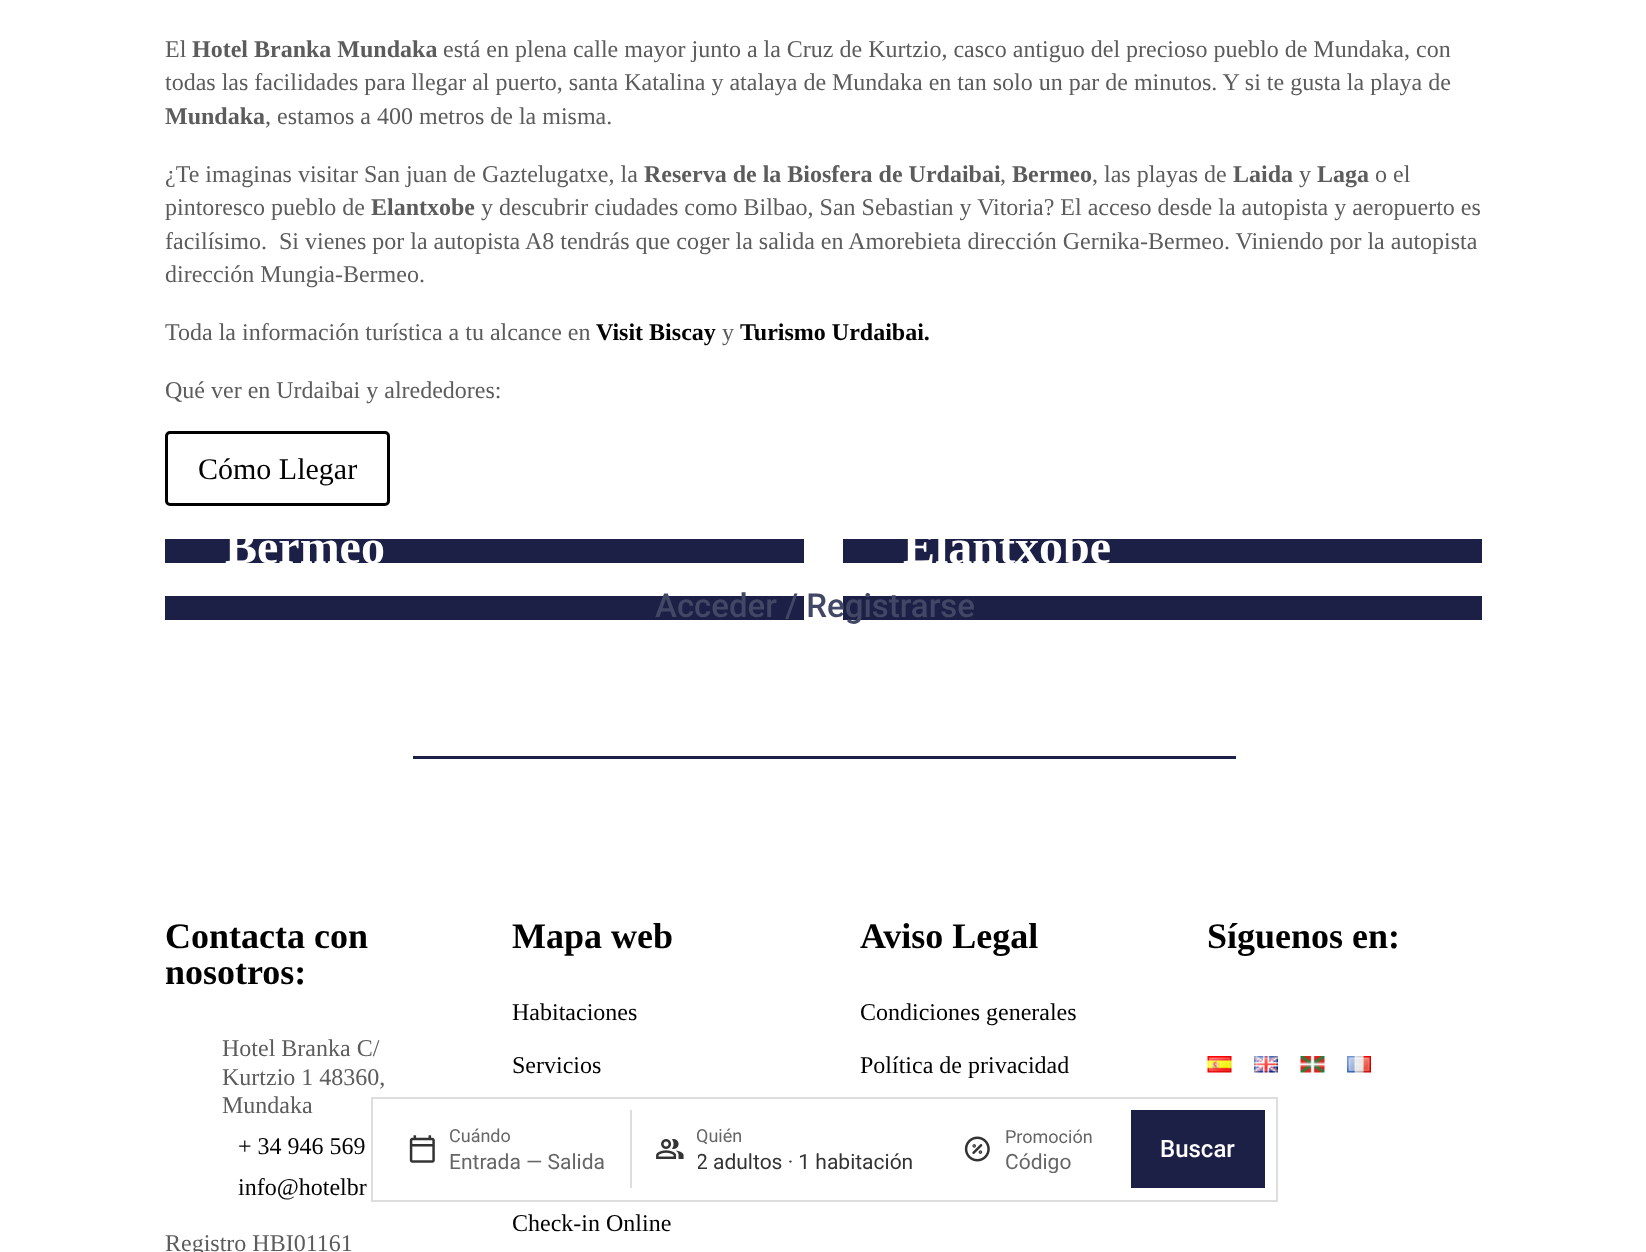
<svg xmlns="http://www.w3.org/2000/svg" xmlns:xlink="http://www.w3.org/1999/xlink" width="1646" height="1252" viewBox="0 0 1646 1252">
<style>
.cls-1{font:24px Liberation Serif;fill:#5c5c5c}
.cls-2{font:bold 24px Liberation Serif;fill:#5c5c5c}
.cls-3{font:bold 24px Liberation Serif;fill:#000000}
.cls-4{font:30px Liberation Serif;fill:#000000}
.cls-5{font:bold 48px Liberation Serif;fill:#ffffff}
.cls-6{font:bold 36px Liberation Serif;fill:#000000}
.cls-7{font:24px Liberation Serif;fill:#000000}
.cls-8{font:500 33px Roboto;fill:#434766}
.cls-9{font:18px Roboto;fill:#666666}
.cls-10{font:21px Roboto;fill:#666666}
.cls-11{font:21px Roboto;fill:#333333}
.cls-12{font:500 24px Roboto;fill:#ffffff}
</style>
<defs>
<clipPath id="clip1"><rect x="698" y="1148" width="217" height="27"/></clipPath>
<clipPath id="clip2"><rect x="1005" y="1149" width="102" height="24" rx="6"/></clipPath>
</defs>
<rect width="100%" height="100%" fill="#ffffff"/>
<rect fill="none" stroke="#000000" stroke-width="3" x="166.5" y="432.5" width="222" height="72" rx="3.5"/>
<rect fill="#1c2046" x="165" y="596" width="639" height="24"/>
<rect fill="#1c2046" x="843" y="596" width="639" height="24"/>
<rect fill="#1c2046" x="165" y="539" width="639" height="24"/>
<rect fill="#1c2046" x="843" y="539" width="639" height="24"/>
<rect fill="#1c2046" x="413" y="756" width="823" height="3"/>
<image xlink:href="image0.png" x="1207" y="1056" width="25" height="17"/>
<image xlink:href="image1.png" x="1254" y="1056" width="24" height="17"/>
<image xlink:href="image2.png" x="1300" y="1056" width="25" height="17"/>
<image xlink:href="image3.png" x="1347" y="1056" width="24" height="17"/>
<rect fill="none" stroke="#dddddd" stroke-width="2" x="372" y="1098" width="905" height="103"/>
<image xlink:href="image4.png" x="409" y="1135" width="26" height="28"/>
<rect fill="#dddddd" x="630" y="1110" width="2" height="78"/>
<image xlink:href="image5.png" x="656" y="1139" width="28" height="20"/>
<image xlink:href="image6.png" x="964" y="1136" width="26" height="26"/>
<rect fill="#1c2046" x="1131" y="1110" width="134" height="78"/>
<text class="cls-1" x="165" y="57">El</text>
<text class="cls-2" x="192" y="57">Hotel Branka Mundaka</text>
<text class="cls-1" x="443" y="57">está en plena calle mayor junto a la Cruz de Kurtzio, casco antiguo del precioso pueblo de Mundaka, con</text>
<text class="cls-1" x="165" y="90">todas las facilidades para llegar al puerto, santa Katalina y atalaya de Mundaka en tan solo un par de minutos. Y si te gusta la playa de</text>
<text class="cls-2" x="165" y="124">Mundaka</text>
<text class="cls-1" x="265" y="124">, estamos a 400 metros de la misma.</text>
<text class="cls-1" x="165" y="182">¿Te imaginas visitar San juan de Gaztelugatxe, la</text>
<text class="cls-2" x="644" y="182">Reserva de la Biosfera de Urdaibai</text>
<text class="cls-1" x="1000" y="182">,</text>
<text class="cls-2" x="1012" y="182">Bermeo</text>
<text class="cls-1" x="1092" y="182">, las playas de</text>
<text class="cls-2" x="1233" y="182">Laida</text>
<text class="cls-1" x="1299" y="182">y</text>
<text class="cls-2" x="1317" y="182">Laga</text>
<text class="cls-1" x="1375" y="182">o el</text>
<text class="cls-1" x="165" y="215">pintoresco pueblo de</text>
<text class="cls-2" x="371" y="215">Elantxobe</text>
<text class="cls-1" x="481" y="215">y descubrir ciudades como Bilbao, San Sebastian y Vitoria? El acceso desde la autopista y aeropuerto es</text>
<text class="cls-1" xml:space="preserve"><tspan x="165" y="249">facilísimo.  Si vienes por la autopista A8 tendrás que coger la salida en Amorebieta dirección Gernika-Bermeo. Viniendo por la autopista</tspan><tspan x="165" y="282">dirección Mungia-Bermeo.</tspan></text>
<text class="cls-1" x="165" y="340">Toda la información turística a tu alcance en</text>
<text class="cls-3" x="596" y="340">Visit Biscay</text>
<text class="cls-1" x="722" y="340">y</text>
<text class="cls-3" x="740" y="340">Turismo Urdaibai.</text>
<text class="cls-1" x="165" y="398">Qué ver en Urdaibai y alrededores:</text>
<text class="cls-4" x="198" y="479">Cómo Llegar</text>
<text class="cls-5" x="225" y="563">Bermeo</text>
<text class="cls-5" x="903" y="563">Elantxobe</text>
<text class="cls-6"><tspan x="165" y="948">Contacta con</tspan><tspan x="165" y="984">nosotros:</tspan></text>
<text class="cls-1"><tspan x="222" y="1056">Hotel Branka C/</tspan><tspan x="222" y="1085">Kurtzio 1 48360,</tspan><tspan x="222" y="1113">Mundaka</tspan></text>
<text class="cls-7"><tspan x="238" y="1154">+ 34 946 569</tspan><tspan x="238" y="1195">info@hotelbr</tspan></text>
<text class="cls-1" x="165" y="1251">Registro HBI01161</text>
<text class="cls-6" x="512" y="948">Mapa web</text>
<text class="cls-7" x="512" y="1020">Habitaciones</text>
<text class="cls-7" x="512" y="1073">Servicios</text>
<text class="cls-7" x="512" y="1231">Check-in Online</text>
<text class="cls-6" x="860" y="948">Aviso Legal</text>
<text class="cls-7" x="860" y="1020">Condiciones generales</text>
<text class="cls-7" x="860" y="1073">Política de privacidad</text>
<text class="cls-6" x="1207" y="948">Síguenos en:</text>
<text class="cls-8" x="655" y="617">Acceder / Registrarse</text>
<text class="cls-9" x="449" y="1142">Cuándo</text>
<text class="cls-10" x="449" y="1169">Entrada — Salida</text>
<text class="cls-9" x="696" y="1142">Quién</text>
<g clip-path="url(#clip1)">
<text class="cls-11" x="696" y="1169">2 adultos · 1 habitación</text>
</g>
<text class="cls-9" x="1005" y="1143">Promoción</text>
<g clip-path="url(#clip2)">
<text class="cls-10" x="1005" y="1169">Código</text>
</g>
<text class="cls-12" x="1160" y="1157">Buscar</text>
</svg>
